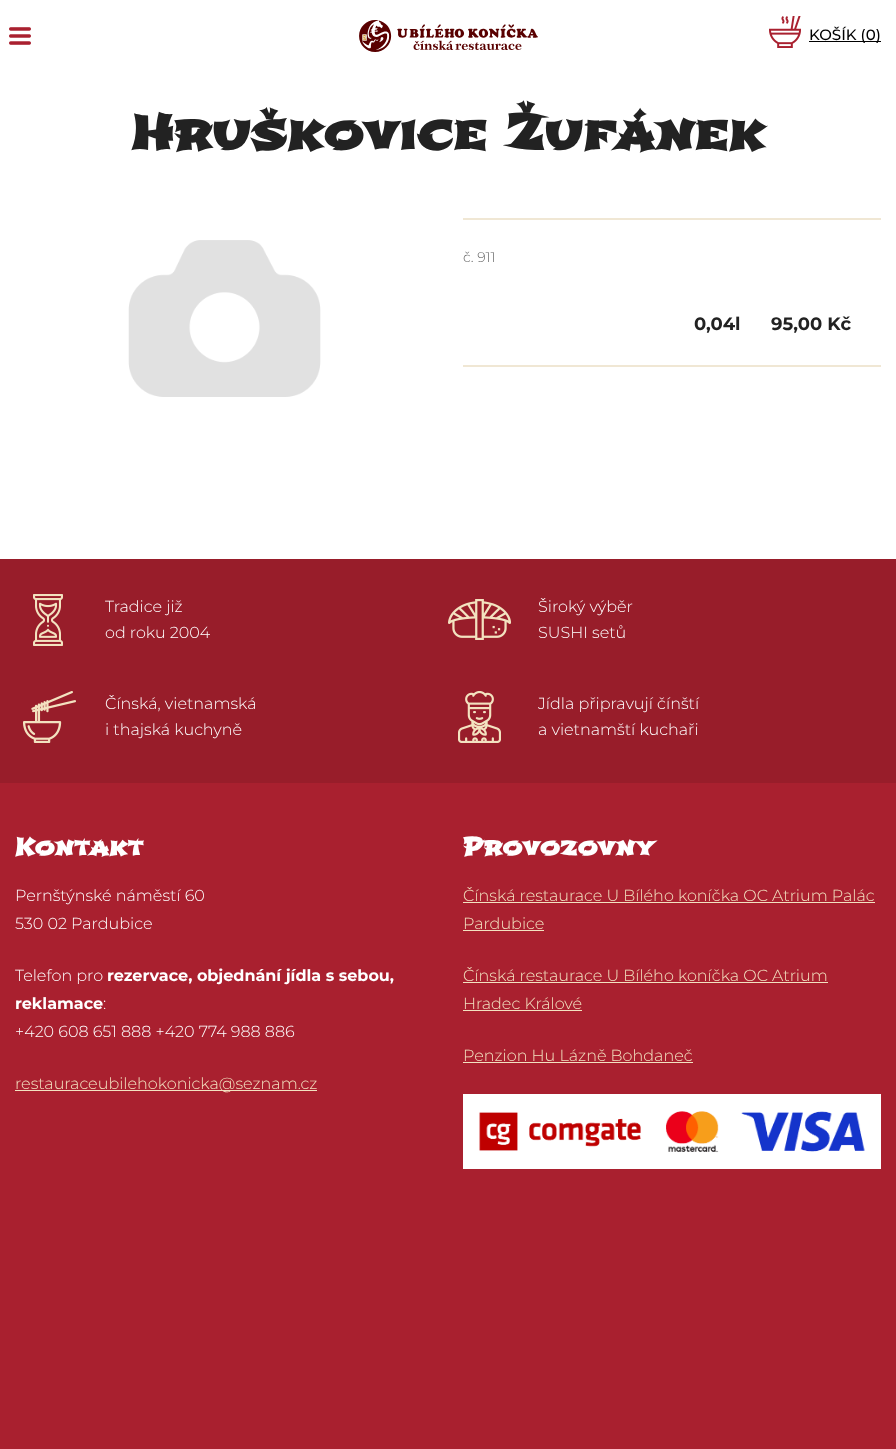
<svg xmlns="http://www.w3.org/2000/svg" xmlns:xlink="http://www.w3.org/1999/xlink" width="896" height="1449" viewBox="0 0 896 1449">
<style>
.cls-1{font:500 15px Montserrat;fill:#000000}
.cls-2{font:bold 48px Shojumaru;fill:#222222}
.cls-3{font:300 14px Montserrat;fill:#666666}
.cls-4{font:bold 18px Montserrat;fill:#222222}
.cls-5{font:300 16px Montserrat;fill:#ffffff}
.cls-6{font:bold 24px Shojumaru;fill:#ffffff}
.cls-7{font:bold 16px Montserrat;fill:#ffffff}
.cls-8{font:300 16px Montserrat;fill:#f3e2c0}
</style>
<rect width="100%" height="100%" fill="#ffffff"/>
<image xlink:href="image0.png" x="9" y="27" width="22" height="18"/>
<image xlink:href="image1.png" x="359" y="20" width="179" height="32"/>
<image xlink:href="image2.png" x="769" y="16" width="32" height="32"/>
<rect fill="#000000" x="809" y="41" width="72" height="1"/>
<image xlink:href="image3.png" x="128" y="240" width="193" height="157"/>
<rect fill="#f0e7d4" x="463" y="218" width="418" height="2"/>
<rect fill="#f0e7d4" x="463" y="365" width="418" height="2"/>
<rect fill="#a9202f" x="0" y="783" width="896" height="666"/>
<rect fill="#981d2a" x="0" y="559" width="896" height="224"/>
<image xlink:href="image4.png" x="33" y="594" width="30" height="52"/>
<image xlink:href="image5.png" x="448" y="599" width="63" height="41"/>
<image xlink:href="image6.png" x="23" y="691" width="53" height="52"/>
<image xlink:href="image7.png" x="458" y="691" width="43" height="52"/>
<rect fill="#f3e2c0" x="15" y="1090" width="302" height="1"/>
<rect fill="#f3e2c0" x="463" y="902" width="412" height="1"/>
<rect fill="#f3e2c0" x="463" y="930" width="81" height="1"/>
<rect fill="#f3e2c0" x="463" y="982" width="365" height="1"/>
<rect fill="#f3e2c0" x="463" y="1010" width="119" height="1"/>
<rect fill="#f3e2c0" x="463" y="1062" width="230" height="1"/>
<image xlink:href="image8.png" x="463" y="1094" width="418" height="75"/>
<text class="cls-1" x="809" y="40">KOŠÍK (0)</text>
<text class="cls-2" x="131" y="149">Hruškovice Žufánek</text>
<text class="cls-3" x="463" y="262">č. 911</text>
<text class="cls-4" x="694" y="330">0,04l</text>
<text class="cls-4" x="771" y="330">95,00 Kč</text>
<text class="cls-5"><tspan x="105" y="612">Tradice již</tspan><tspan x="105" y="638">od roku 2004</tspan></text>
<text class="cls-5"><tspan x="538" y="612">Široký výběr</tspan><tspan x="538" y="638">SUSHI setů</tspan></text>
<text class="cls-5"><tspan x="105" y="709">Čínská, vietnamská</tspan><tspan x="105" y="735">i thajská kuchyně</tspan></text>
<text class="cls-5"><tspan x="538" y="709">Jídla připravují čínští</tspan><tspan x="538" y="735">a vietnamští kuchaři</tspan></text>
<text class="cls-6" x="15" y="855">Kontakt</text>
<text class="cls-5"><tspan x="15" y="901">Pernštýnské náměstí 60</tspan><tspan x="15" y="929">530 02 Pardubice</tspan></text>
<text class="cls-5" x="15" y="981">Telefon pro</text>
<text class="cls-7" x="107" y="981">rezervace, objednání jídla s sebou,</text>
<text class="cls-7" x="15" y="1009">reklamace</text>
<text class="cls-5" x="103" y="1009">:</text>
<text class="cls-5" x="15" y="1037">+420 608 651 888 +420 774 988 886</text>
<text class="cls-8" x="15" y="1089">restauraceubilehokonicka@seznam.cz</text>
<text class="cls-6" x="463" y="855">Provozovny</text>
<text class="cls-8"><tspan x="463" y="901">Čínská restaurace U Bílého koníčka OC Atrium Palác</tspan><tspan x="463" y="929">Pardubice</tspan></text>
<text class="cls-8"><tspan x="463" y="981">Čínská restaurace U Bílého koníčka OC Atrium</tspan><tspan x="463" y="1009">Hradec Králové</tspan></text>
<text class="cls-8" x="463" y="1061">Penzion Hu Lázně Bohdaneč</text>
</svg>
